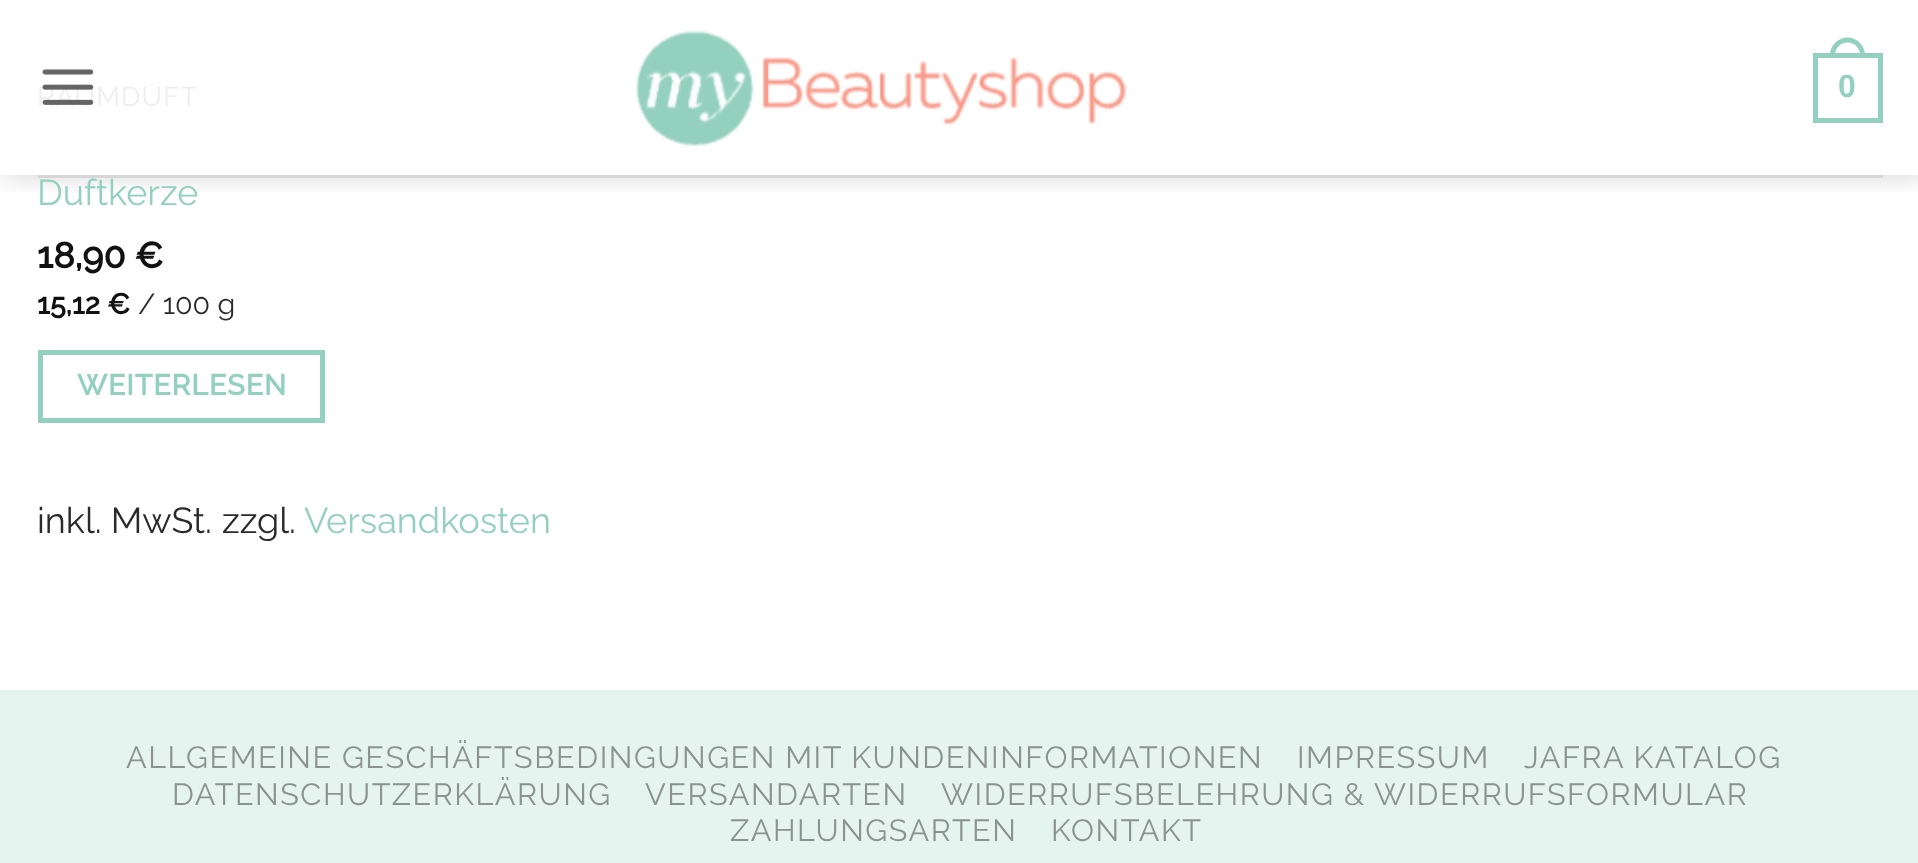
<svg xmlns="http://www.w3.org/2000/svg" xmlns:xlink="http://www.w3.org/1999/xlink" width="1918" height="863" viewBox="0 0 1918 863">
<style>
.cls-1{font:27px Raleway;letter-spacing:1.25px;fill:#eeeeee}
.cls-2{font:36px Raleway;fill:#93d0c0}
.cls-3{font:bold 36px Raleway;fill:#111111}
.cls-4{font:bold 28.75px Raleway;fill:#111111}
.cls-5{font:28.75px Raleway;fill:#2a2a2a}
.cls-6{font:bold 28.75px Raleway;letter-spacing:0.9px;fill:#93d0c0}
.cls-7{font:36px Raleway;fill:#2a2a2a}
.cls-8{font:bold 32px Liberation Sans;fill:#93d0c0}
.cls-9{font:30.6px Raleway;letter-spacing:1.53px;fill:#8a9390}
</style>
<defs>
<clipPath id="clip1"><rect x="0" y="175" width="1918" height="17"/></clipPath>
</defs>
<rect width="100%" height="100%" fill="#ffffff"/>
<rect fill="none" stroke="#93d0c0" stroke-width="5" x="40.5" y="352.5" width="282" height="68"/>
<g clip-path="url(#clip1)">
<rect fill="#000000" fill-opacity="0.15" filter="blur(12.5px)" x="3" y="3" width="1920" height="175"/>
</g>
<image xlink:href="image1.png" x="635" y="30" width="492" height="117"/>
<rect fill="none" stroke="#93d0c0" stroke-width="5" x="1815.5" y="55.5" width="65" height="65"/>
<path fill="#93d0c0" fill-rule="evenodd" d="M1847.5 37.5C1857 37.5 1865 45.5 1865 55V57.5H1830V55C1830 45.5 1838 37.5 1847.5 37.5ZM1847.5 42.5C1854.5 42.5 1860 48 1860 55V57.5H1835V55C1835 48 1840.5 42.5 1847.5 42.5Z"/>
<rect fill="#d7d7d7" x="38" y="175" width="1845" height="3"/>
<rect fill="#e6f4f0" x="0" y="690" width="1918" height="173"/>
<text class="cls-1" x="37" y="106">RAUMDUFT</text>
<text class="cls-2" x="37" y="205">Duftkerze</text>
<text class="cls-3" x="37" y="268">18,90 €</text>
<text class="cls-4" x="37" y="314">15,12 €</text>
<text class="cls-5" x="138" y="314">/ 100 g</text>
<text class="cls-6" x="77" y="395">WEITERLESEN</text>
<text class="cls-7" x="37" y="533">inkl. MwSt.</text>
<text class="cls-7" x="222" y="533">zzgl.</text>
<text class="cls-2" x="304" y="533">Versandkosten</text>
<image xlink:href="image0.png" x="42" y="69" width="52" height="36"/>
<text class="cls-8" x="1838" y="97">0</text>
<text class="cls-9" x="126" y="768">ALLGEMEINE GESCHÄFTSBEDINGUNGEN MIT KUNDENINFORMATIONEN</text>
<text class="cls-9" x="1297" y="768">IMPRESSUM</text>
<text class="cls-9" x="1524" y="768">JAFRA KATALOG</text>
<text class="cls-9" x="172" y="805">DATENSCHUTZERKLÄRUNG</text>
<text class="cls-9" x="645" y="805">VERSANDARTEN</text>
<text class="cls-9" x="941" y="805">WIDERRUFSBELEHRUNG &amp; WIDERRUFSFORMULAR</text>
<text class="cls-9" x="730" y="841">ZAHLUNGSARTEN</text>
<text class="cls-9" x="1051" y="841">KONTAKT</text>
</svg>
